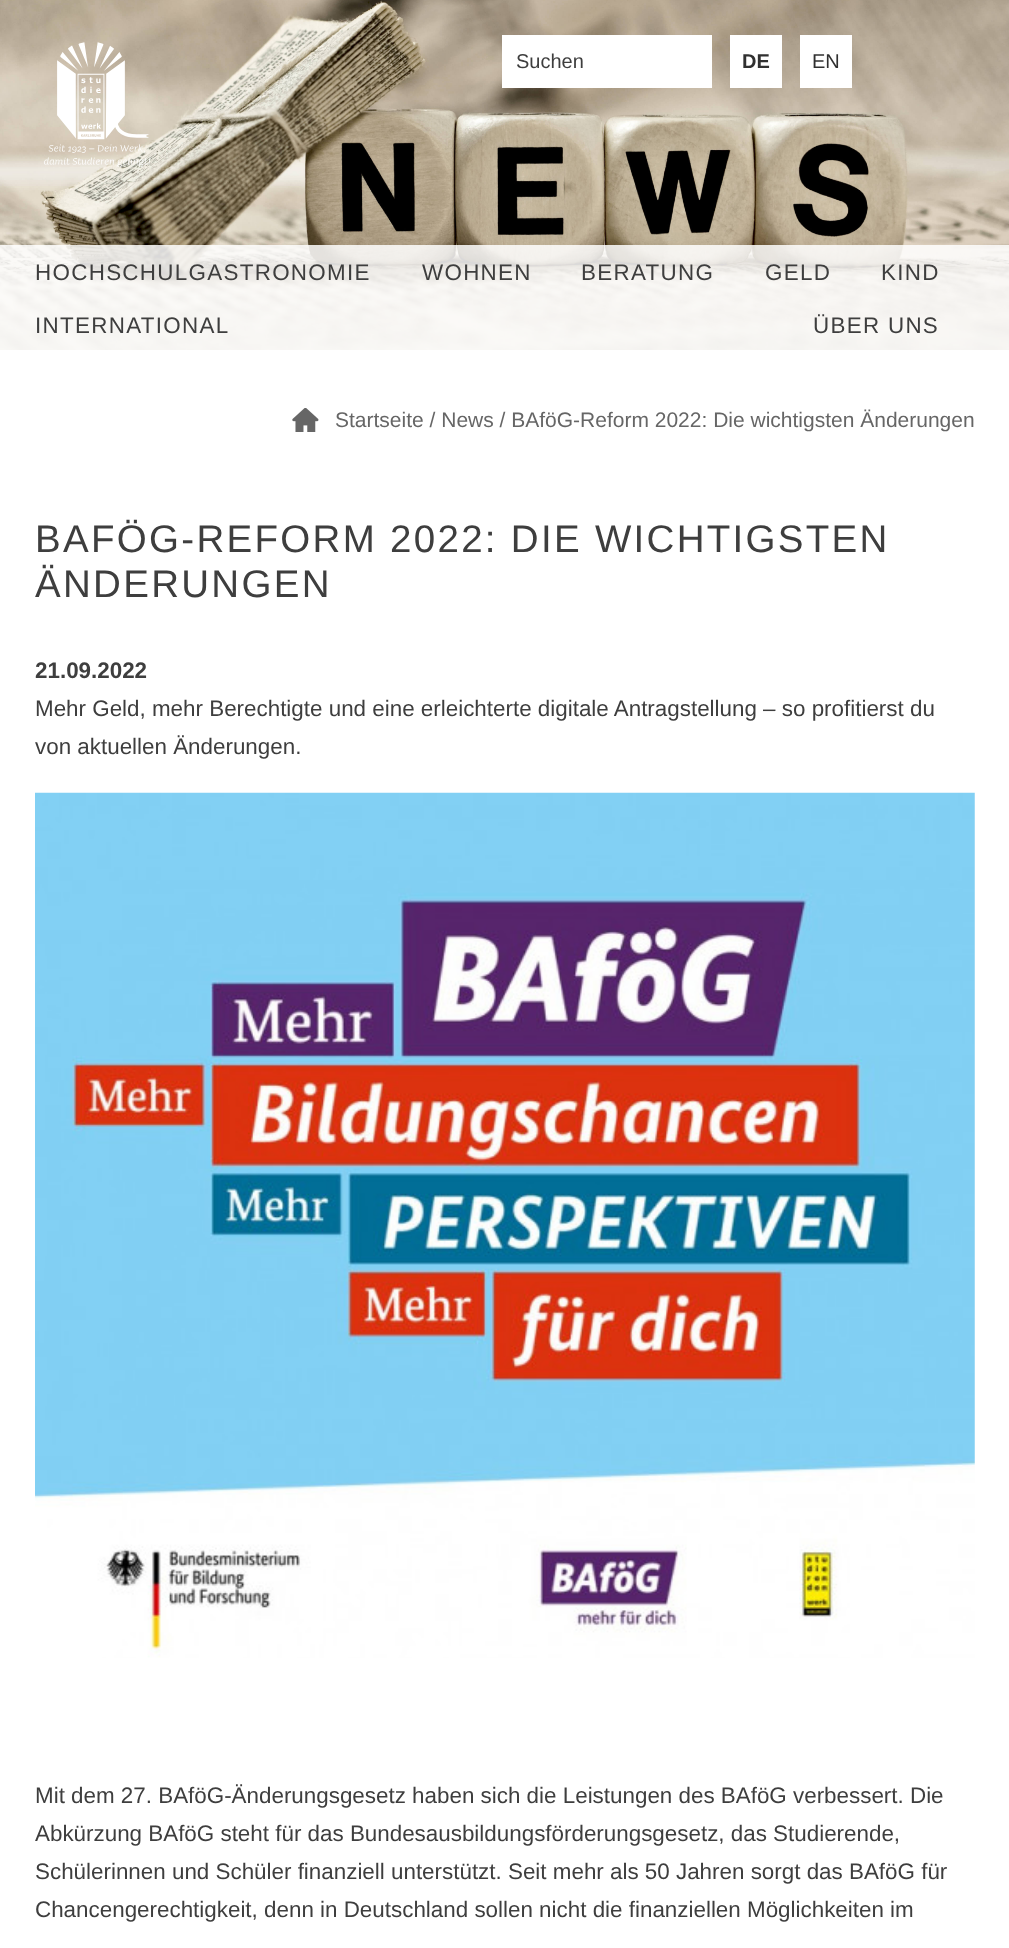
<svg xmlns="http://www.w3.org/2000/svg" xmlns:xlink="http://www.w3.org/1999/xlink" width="1009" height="1948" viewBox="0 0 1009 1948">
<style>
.cls-1{font:20px Liberation Sans;fill:#3e3e3e}
.cls-2{font:bold 20px Liberation Sans;fill:#303030}
.cls-3{font:20px Liberation Sans;fill:#303030}
.cls-4{font:22.4px Liberation Sans;letter-spacing:1.3px;fill:#3e3e3e}
.cls-5{font:21px Liberation Sans;fill:#666666}
.cls-6{font:38.5px Liberation Sans;letter-spacing:2.3px;fill:#3e3e3e}
.cls-7{font:bold 22.4px Liberation Sans;fill:#3e3e3e}
.cls-8{font:22.4px Liberation Sans;fill:#3e3e3e}
</style>
<rect width="100%" height="100%" fill="#ffffff"/>
<image xlink:href="image0.png" x="0" y="0" width="1009" height="350"/>
<image xlink:href="image1.png" x="44" y="42" width="107" height="125"/>
<rect fill="#ffffff" x="502" y="35" width="210" height="53"/>
<rect fill="#ffffff" x="730" y="35" width="52" height="53"/>
<rect fill="#ffffff" x="800" y="35" width="52" height="53"/>
<rect fill="#ffffff" fill-opacity="0.85" x="0" y="245" width="1009" height="105"/>
<image xlink:href="image2.png" x="292" y="408" width="27" height="24"/>
<image xlink:href="image3.png" x="35" y="792" width="940" height="866"/>
<text class="cls-1" x="516" y="68">Suchen</text>
<text class="cls-2" x="742" y="68">DE</text>
<text class="cls-3" x="812" y="68">EN</text>
<text class="cls-4" x="35" y="280">HOCHSCHULGASTRONOMIE</text>
<text class="cls-4" x="422" y="280">WOHNEN</text>
<text class="cls-4" x="581" y="280">BERATUNG</text>
<text class="cls-4" x="765" y="280">GELD</text>
<text class="cls-4" x="881" y="280">KIND</text>
<text class="cls-4" x="35" y="333">INTERNATIONAL</text>
<text class="cls-4" x="813" y="333">ÜBER UNS</text>
<text class="cls-5" x="335" y="427">Startseite / News / BAföG-Reform 2022: Die wichtigsten Änderungen</text>
<text class="cls-6"><tspan x="35" y="552">BAFÖG-REFORM 2022: DIE WICHTIGSTEN</tspan><tspan x="35" y="597">ÄNDERUNGEN</tspan></text>
<text class="cls-7" x="35" y="678">21.09.2022</text>
<text class="cls-8"><tspan x="35" y="716">Mehr Geld, mehr Berechtigte und eine erleichterte digitale Antragstellung – so profitierst du</tspan><tspan x="35" y="754">von aktuellen Änderungen.</tspan></text>
<text class="cls-8"><tspan x="35" y="1803">Mit dem 27. BAföG-Änderungsgesetz haben sich die Leistungen des BAföG verbessert. Die</tspan><tspan x="35" y="1841">Abkürzung BAföG steht für das Bundesausbildungsförderungsgesetz, das Studierende,</tspan><tspan x="35" y="1879">Schülerinnen und Schüler finanziell unterstützt. Seit mehr als 50 Jahren sorgt das BAföG für</tspan><tspan x="35" y="1917">Chancengerechtigkeit, denn in Deutschland sollen nicht die finanziellen Möglichkeiten im</tspan></text>
</svg>
